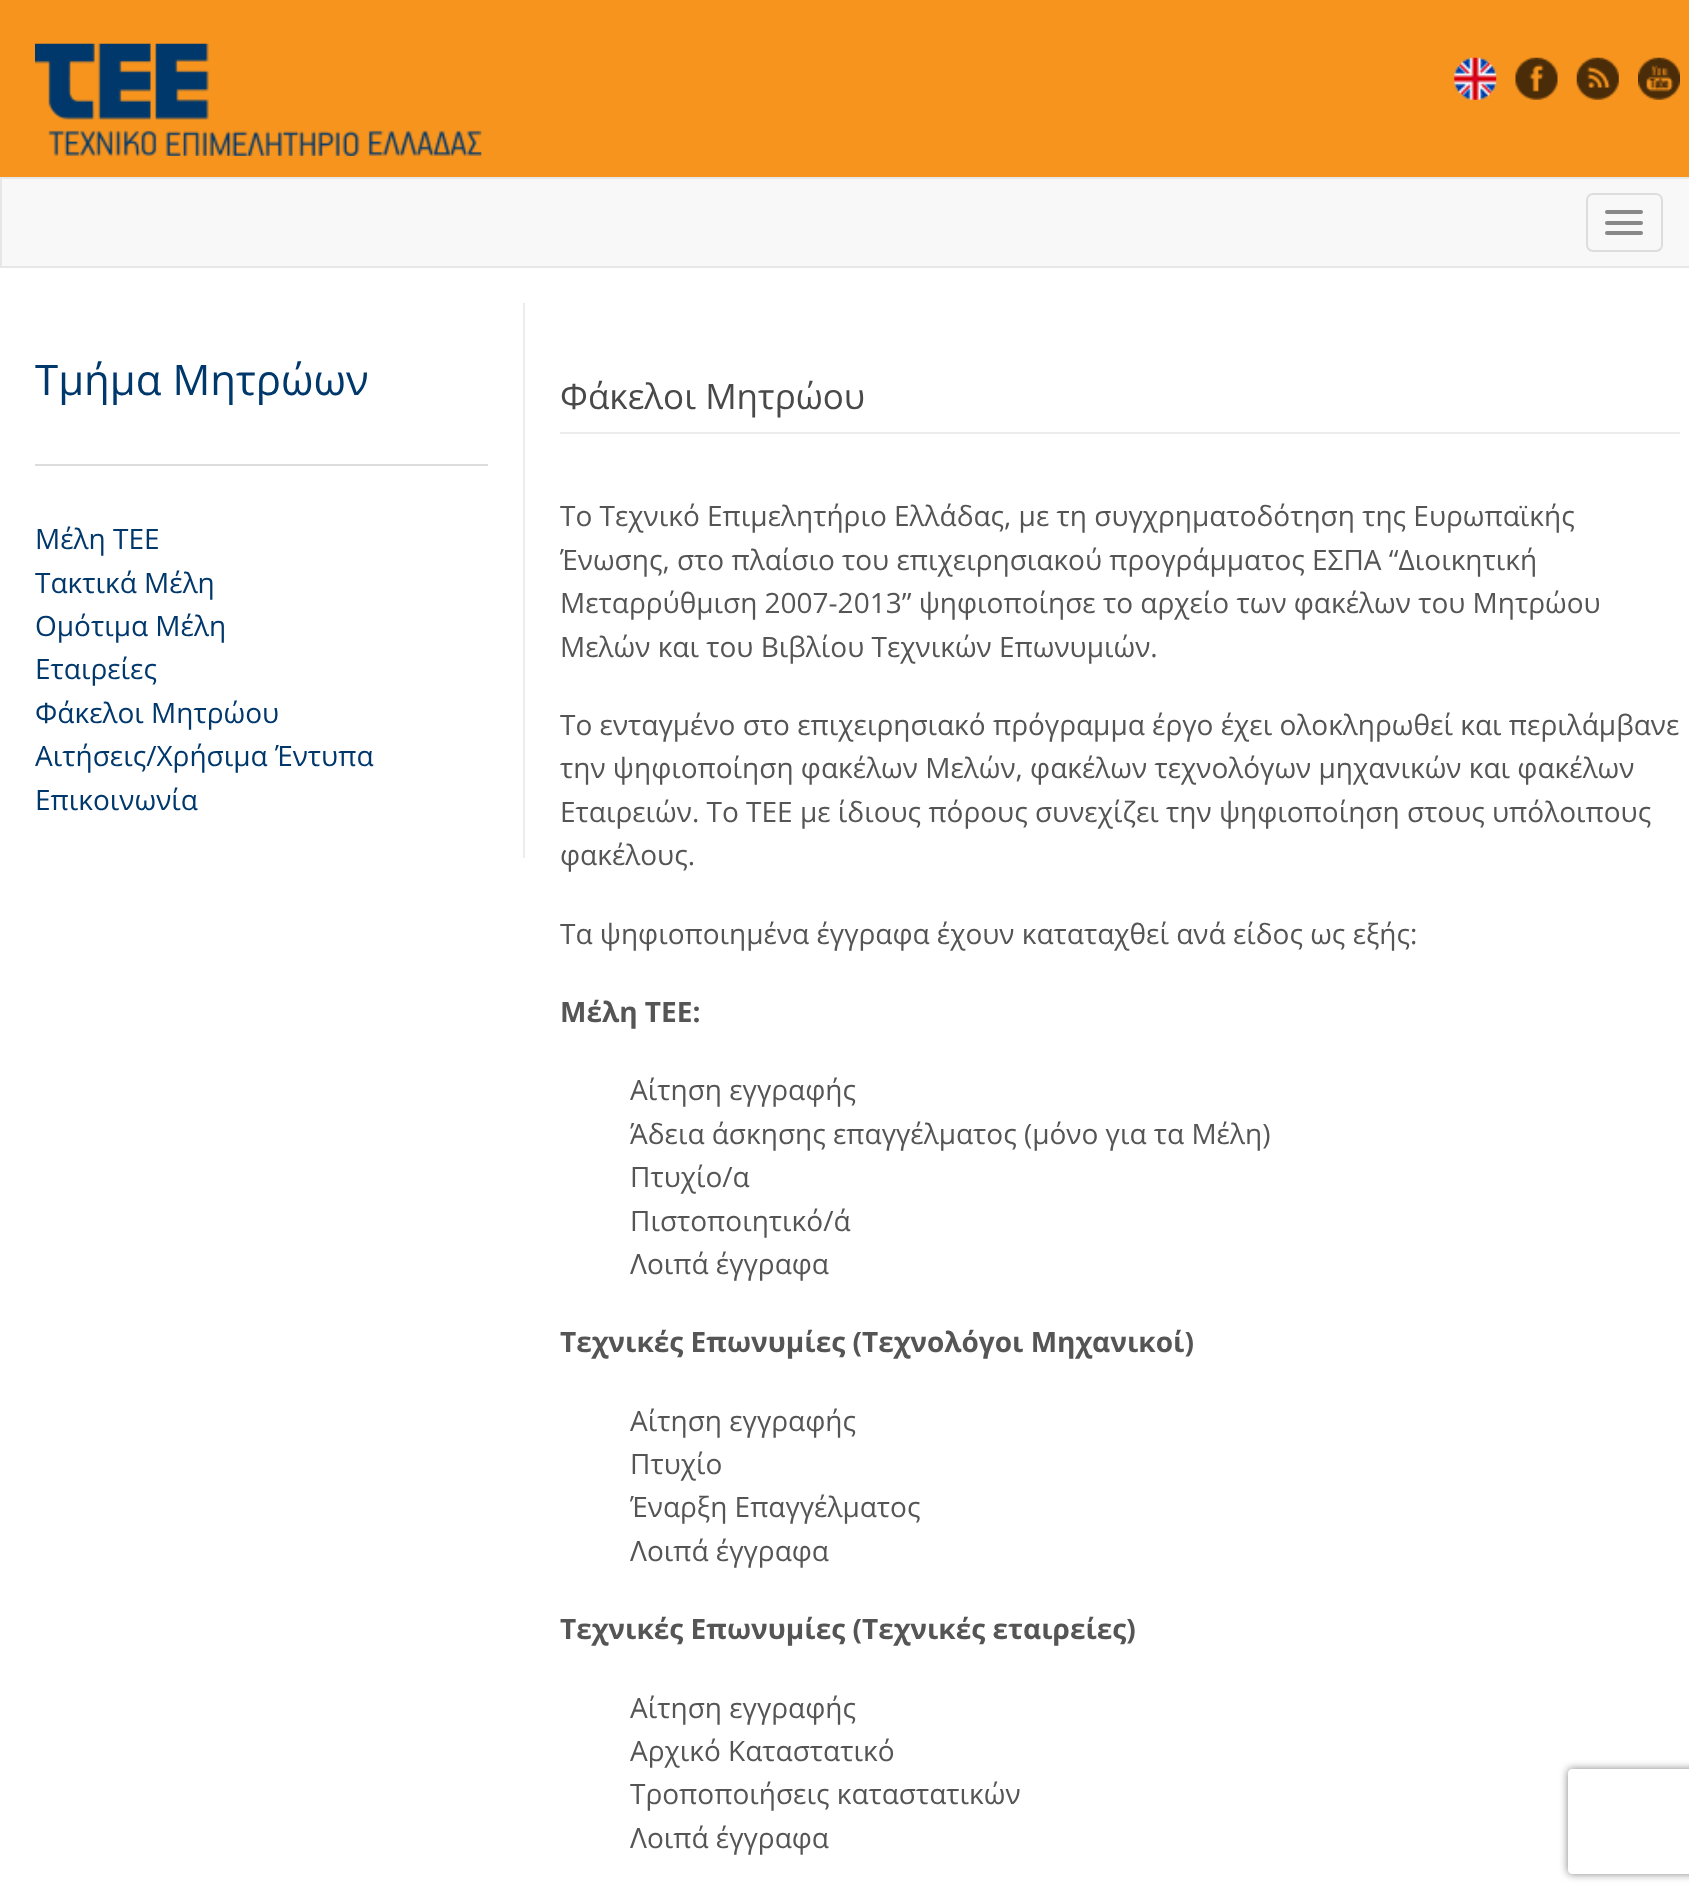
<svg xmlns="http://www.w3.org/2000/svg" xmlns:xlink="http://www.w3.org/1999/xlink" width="1689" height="1898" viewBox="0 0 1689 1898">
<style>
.cls-1{font:42px Open Sans;fill:#00386c}
.cls-2{font:28px Open Sans;fill:#00386c}
.cls-3{font:35px Open Sans;fill:#494949}
.cls-4{font:28px Open Sans;fill:#555555}
.cls-5{font:bold 28px Open Sans;fill:#555555}
</style>
<defs>
<clipPath id="clip1"><path d="M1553 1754H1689V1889H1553ZM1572 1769H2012C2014 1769 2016 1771 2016 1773V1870C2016 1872 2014 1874 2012 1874H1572C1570 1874 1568 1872 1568 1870V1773C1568 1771 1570 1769 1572 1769Z" clip-rule="evenodd"/></clipPath>
</defs>
<rect width="100%" height="100%" fill="#ffffff"/>
<rect fill="#f7941e" x="0" y="0" width="1689" height="177"/>
<image xlink:href="image0.png" x="35" y="43" width="447" height="113"/>
<image xlink:href="image1.png" x="1454" y="57" width="43" height="43"/>
<image xlink:href="image2.png" x="1515" y="57" width="43" height="43"/>
<image xlink:href="image3.png" x="1576" y="57" width="43" height="43"/>
<image xlink:href="image4.png" x="1638" y="57" width="42" height="43"/>
<rect fill="#f8f8f8" stroke="#e7e7e7" stroke-width="2" x="1" y="178" width="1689" height="89"/>
<rect fill="none" stroke="#dddddd" stroke-width="2" x="1587" y="194" width="75" height="57" rx="6"/>
<rect fill="#888888" x="1605" y="210" width="38" height="4" rx="2"/>
<rect fill="#888888" x="1605" y="221" width="38" height="4" rx="2"/>
<rect fill="#888888" x="1605" y="231" width="38" height="4" rx="2"/>
<rect fill="#ececec" x="523" y="303" width="2" height="555"/>
<rect fill="#dddddd" x="35" y="464" width="453" height="2"/>
<rect fill="#ececec" x="560" y="432" width="1120" height="2"/>
<g clip-path="url(#clip1)">
<rect fill="#808080" filter="blur(4.5px)" x="1568" y="1769" width="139" height="105" rx="4"/>
</g>
<text class="cls-1" x="35" y="395">Τμήμα Μητρώων</text>
<text class="cls-2"><tspan x="35" y="549">Μέλη ΤΕΕ</tspan><tspan x="35" y="593">Τακτικά Μέλη</tspan><tspan x="35" y="636">Ομότιμα Μέλη</tspan><tspan x="35" y="679">Εταιρείες</tspan><tspan x="35" y="723">Φάκελοι Μητρώου</tspan><tspan x="35" y="766">Αιτήσεις/Χρήσιμα Έντυπα</tspan><tspan x="35" y="810">Επικοινωνία</tspan></text>
<text class="cls-3" x="560" y="409">Φάκελοι Μητρώου</text>
<text class="cls-4"><tspan x="560" y="526">Το Τεχνικό Επιμελητήριο Ελλάδας, με τη συγχρηματοδότηση της Ευρωπαϊκής</tspan><tspan x="560" y="570">Ένωσης, στο πλαίσιο του επιχειρησιακού προγράμματος ΕΣΠΑ “Διοικητική</tspan><tspan x="560" y="613">Μεταρρύθμιση 2007-2013” ψηφιοποίησε το αρχείο των φακέλων του Μητρώου</tspan><tspan x="560" y="657">Μελών και του Βιβλίου Τεχνικών Επωνυμιών.</tspan></text>
<text class="cls-4"><tspan x="560" y="735">Το ενταγμένο στο επιχειρησιακό πρόγραμμα έργο έχει ολοκληρωθεί και περιλάμβανε</tspan><tspan x="560" y="778">την ψηφιοποίηση φακέλων Μελών, φακέλων τεχνολόγων μηχανικών και φακέλων</tspan><tspan x="560" y="822">Εταιρειών. Το ΤΕΕ με ίδιους πόρους συνεχίζει την ψηφιοποίηση στους υπόλοιπους</tspan><tspan x="560" y="865">φακέλους.</tspan></text>
<text class="cls-4" x="560" y="944">Τα ψηφιοποιημένα έγγραφα έχουν καταταχθεί ανά είδος ως εξής:</text>
<text class="cls-5" x="560" y="1022">Μέλη ΤΕΕ:</text>
<text class="cls-4"><tspan x="630" y="1100">Αίτηση εγγραφής</tspan><tspan x="630" y="1144">Άδεια άσκησης επαγγέλματος (μόνο για τα Μέλη)</tspan><tspan x="630" y="1187">Πτυχίο/α</tspan><tspan x="630" y="1231">Πιστοποιητικό/ά</tspan><tspan x="630" y="1274">Λοιπά έγγραφα</tspan></text>
<text class="cls-5" x="560" y="1352">Τεχνικές Επωνυμίες (Τεχνολόγοι Μηχανικοί)</text>
<text class="cls-4"><tspan x="630" y="1431">Αίτηση εγγραφής</tspan><tspan x="630" y="1474">Πτυχίο</tspan><tspan x="630" y="1517">Έναρξη Επαγγέλματος</tspan><tspan x="630" y="1561">Λοιπά έγγραφα</tspan></text>
<text class="cls-5" x="560" y="1639">Τεχνικές Επωνυμίες (Τεχνικές εταιρείες)</text>
<text class="cls-4"><tspan x="630" y="1718">Αίτηση εγγραφής</tspan><tspan x="630" y="1761">Αρχικό Καταστατικό</tspan><tspan x="630" y="1804">Τροποποιήσεις καταστατικών</tspan><tspan x="630" y="1848">Λοιπά έγγραφα</tspan></text>
</svg>
